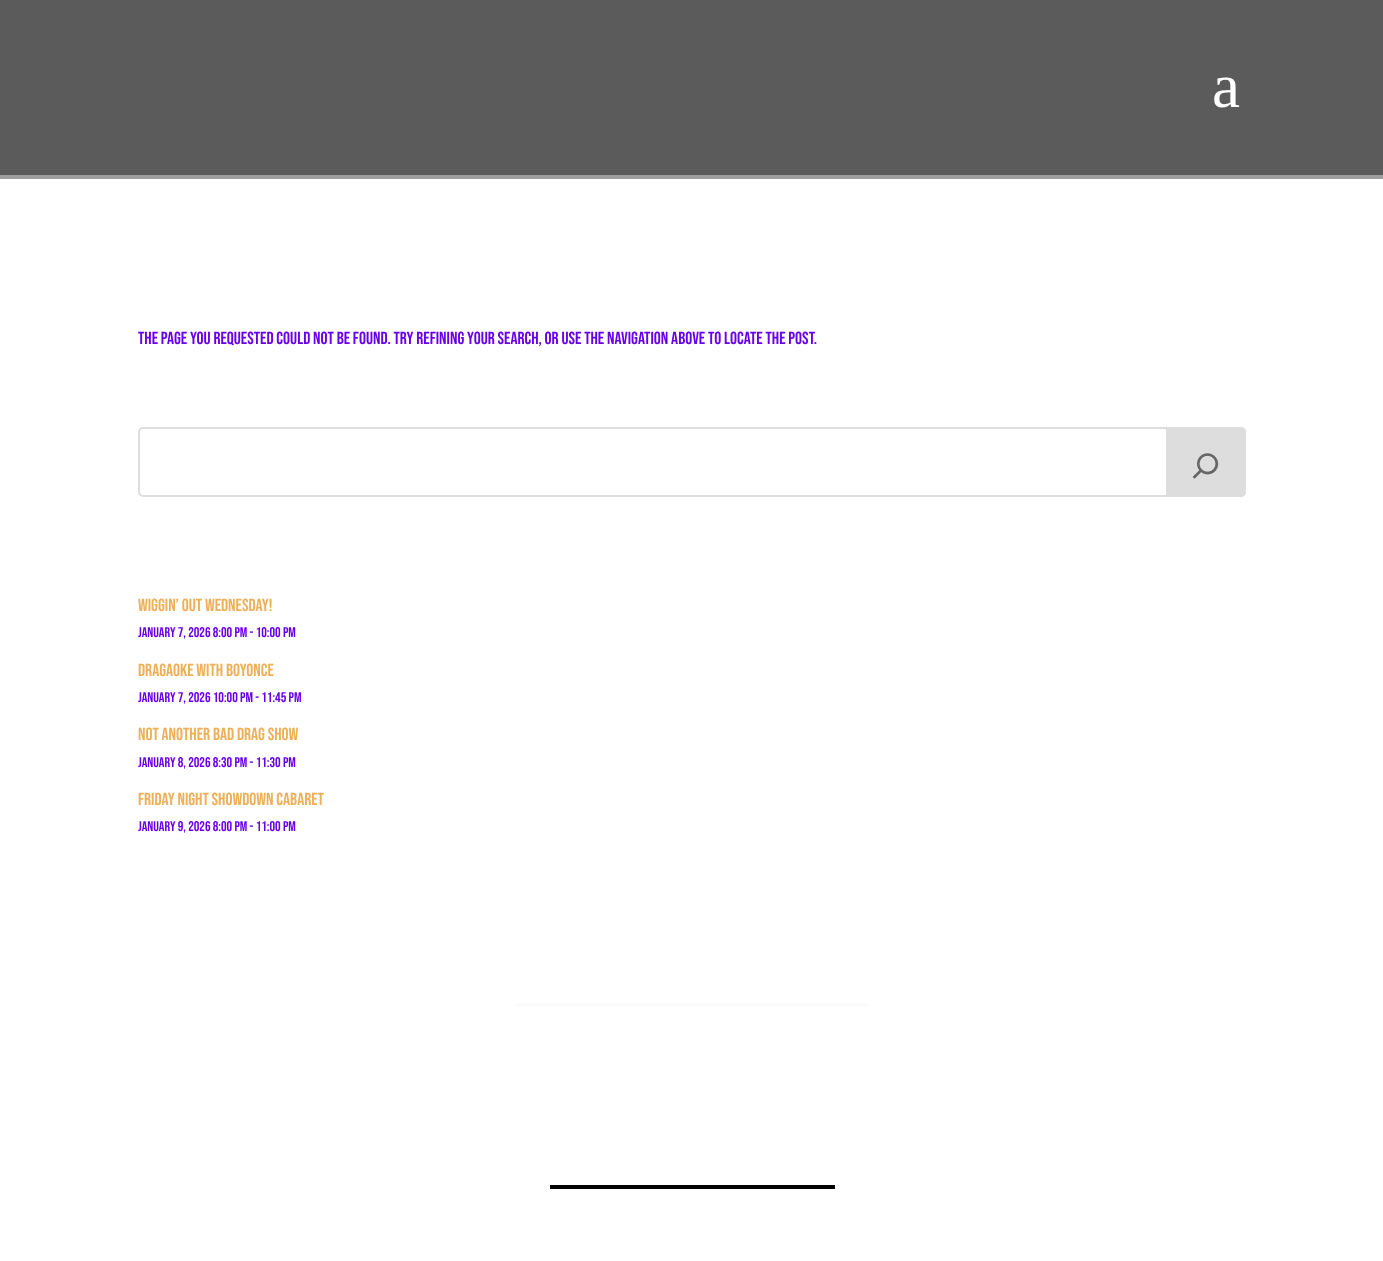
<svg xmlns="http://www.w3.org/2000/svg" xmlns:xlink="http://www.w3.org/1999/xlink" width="1383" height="1261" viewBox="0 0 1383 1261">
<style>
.cls-1{font:63px Liberation Serif;fill:#ffffff}
.cls-2{font:17.5px Bebas Neue;fill:#6800e8}
.cls-3{font:17.5px Bebas Neue;fill:#edb059}
.cls-4{font:14px Bebas Neue;fill:#6800e8}
</style>
<rect width="100%" height="100%" fill="#ffffff"/>
<rect fill="#9e9e9e" x="0" y="175" width="1383" height="4"/>
<rect fill="#5b5b5b" x="0" y="0" width="1383" height="175"/>
<rect fill="none" stroke="#dddddd" stroke-width="2" x="139" y="428" width="1106" height="68" rx="4"/>
<path fill="#dddddd" stroke="#dddddd" stroke-width="2" d="M1167 428H1241C1243 428 1245 430 1245 432V492C1245 494 1243 496 1241 496H1167Z"/>
<image xlink:href="image0.png" x="1192" y="453" width="27" height="26"/>
<rect fill="#fcfcfc" x="516" y="1003" width="352" height="4"/>
<rect fill="#000000" x="550" y="1185" width="285" height="4"/>
<text class="cls-1" x="1212" y="107">a</text>
<text class="cls-2" x="138" y="344">The page you requested could not be found. Try refining your search, or use the navigation above to locate the post.</text>
<text class="cls-3" x="138" y="611">Wiggin’ out Wednesday!</text>
<text class="cls-4" x="138" y="637">January 7, 2026 8:00 pm - 10:00 pm</text>
<text class="cls-3" x="138" y="676">Dragaoke with Boyonce</text>
<text class="cls-4" x="138" y="702">January 7, 2026 10:00 pm - 11:45 pm</text>
<text class="cls-3" x="138" y="740">NOT ANOTHER BAD DRAG SHOW</text>
<text class="cls-4" x="138" y="767">January 8, 2026 8:30 pm - 11:30 pm</text>
<text class="cls-3" x="138" y="805">Friday Night Showdown Cabaret</text>
<text class="cls-4" x="138" y="831">January 9, 2026 8:00 pm - 11:00 pm</text>
</svg>
